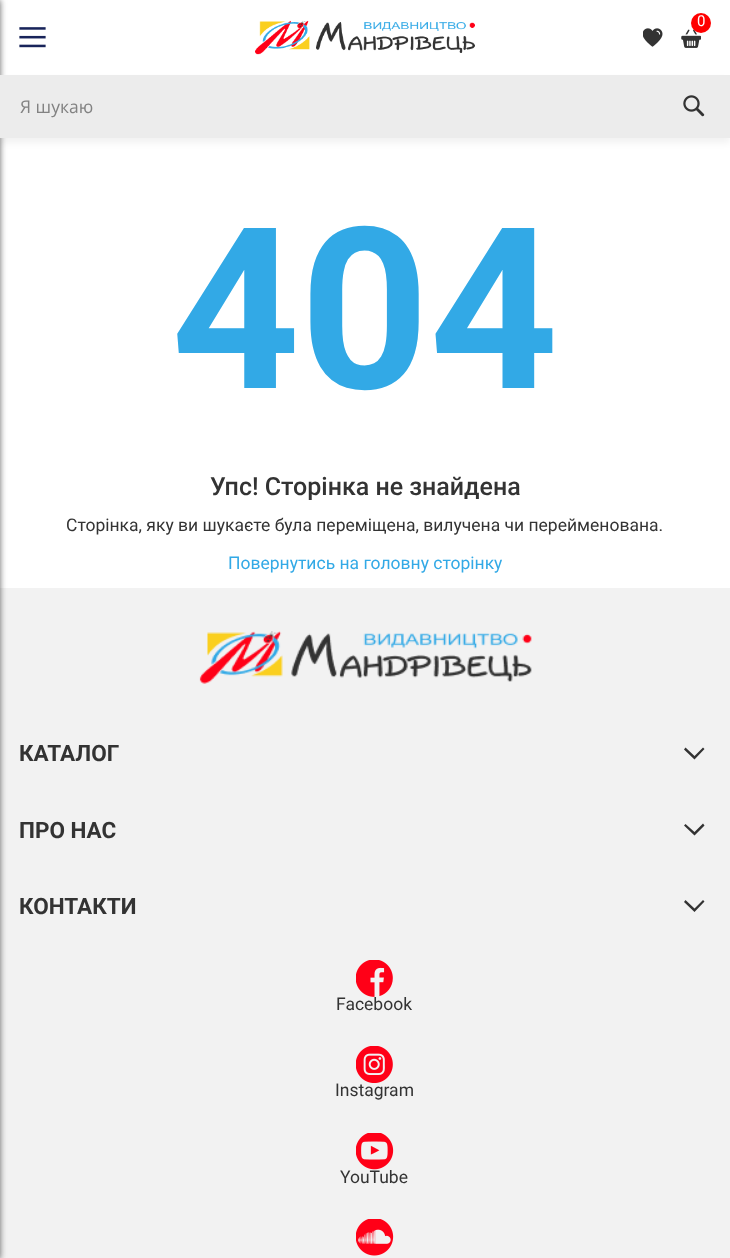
<svg xmlns="http://www.w3.org/2000/svg" xmlns:xlink="http://www.w3.org/1999/xlink" width="730" height="1258" viewBox="0 0 730 1258">
<style>
.cls-1{font:15px Roboto;fill:#ffffff}
.cls-2{font:17.5px Open Sans;fill:#828282}
.cls-3{font:bold 225px Roboto;fill:#32a9e6}
.cls-4{font:500 25px Roboto;fill:#333333}
.cls-5{font:17.5px Roboto;fill:#333333}
.cls-6{font:17.5px Roboto;fill:#32a9e6}
.cls-7{font:bold 22.5px Roboto;fill:#333333}
</style>
<rect width="100%" height="100%" fill="#ffffff"/>
<rect fill="#f2f2f2" x="0" y="588" width="730" height="670"/>
<rect fill="#323232" fill-opacity="0.75" filter="blur(3px)" x="-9" y="0" width="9" height="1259"/>
<image xlink:href="image0.png" x="681" y="29" width="20" height="19"/>
<circle fill="#ff0000" cx="701" cy="23" r="10"/>
<image xlink:href="image1.png" x="643" y="28" width="20" height="19"/>
<rect fill="#000000" fill-opacity="0.05" filter="blur(3px)" x="0" y="80" width="730" height="63"/>
<rect fill="#ececec" x="0" y="75" width="730" height="63"/>
<image xlink:href="image2.png" x="683" y="95" width="22" height="22"/>
<image xlink:href="image3.png" x="19" y="27" width="27" height="21"/>
<image xlink:href="image4.png" x="255" y="20" width="220" height="35"/>
<image xlink:href="image5.png" x="199" y="631" width="333" height="53"/>
<path fill="#333333" d="M694.5 756L685.5 747.5L684 749.5L694.5 759.5L704.5 749L703 747.5Z"/>
<path fill="#333333" d="M694.5 832L685.5 824L684 825.5L694.5 835.5L704.5 825.5L703 823.5Z"/>
<path fill="#333333" d="M694.5 908.5L685.5 900L684 902L694.5 912L704.5 901.5L703 900Z"/>
<image xlink:href="image7.png" x="356" y="1046" width="37" height="37"/>
<image xlink:href="image9.png" x="356" y="1219" width="38" height="37"/>
<text class="cls-1" x="697" y="26">0</text>
<text class="cls-2" x="20" y="113">Я шукаю</text>
<text class="cls-3" x="171" y="388">404</text>
<text class="cls-4" x="210" y="495">Упс! Сторінка не знайдена</text>
<text class="cls-5" x="66" y="531">Сторінка, яку ви шукаєте була переміщена, вилучена чи перейменована.</text>
<text class="cls-6" x="228" y="569">Повернутись на головну сторінку</text>
<text class="cls-7" x="19" y="761">КАТАЛОГ</text>
<text class="cls-7" x="19" y="838">ПРО НАС</text>
<text class="cls-7" x="19" y="914">КОНТАКТИ</text>
<text class="cls-5" x="336" y="1010">Facebook</text>
<image xlink:href="image6.png" x="356" y="960" width="37" height="37"/>
<text class="cls-5" x="335" y="1096">Instagram</text>
<text class="cls-5" x="340" y="1183">YouTube</text>
<image xlink:href="image8.png" x="356" y="1133" width="38" height="37"/>
</svg>
